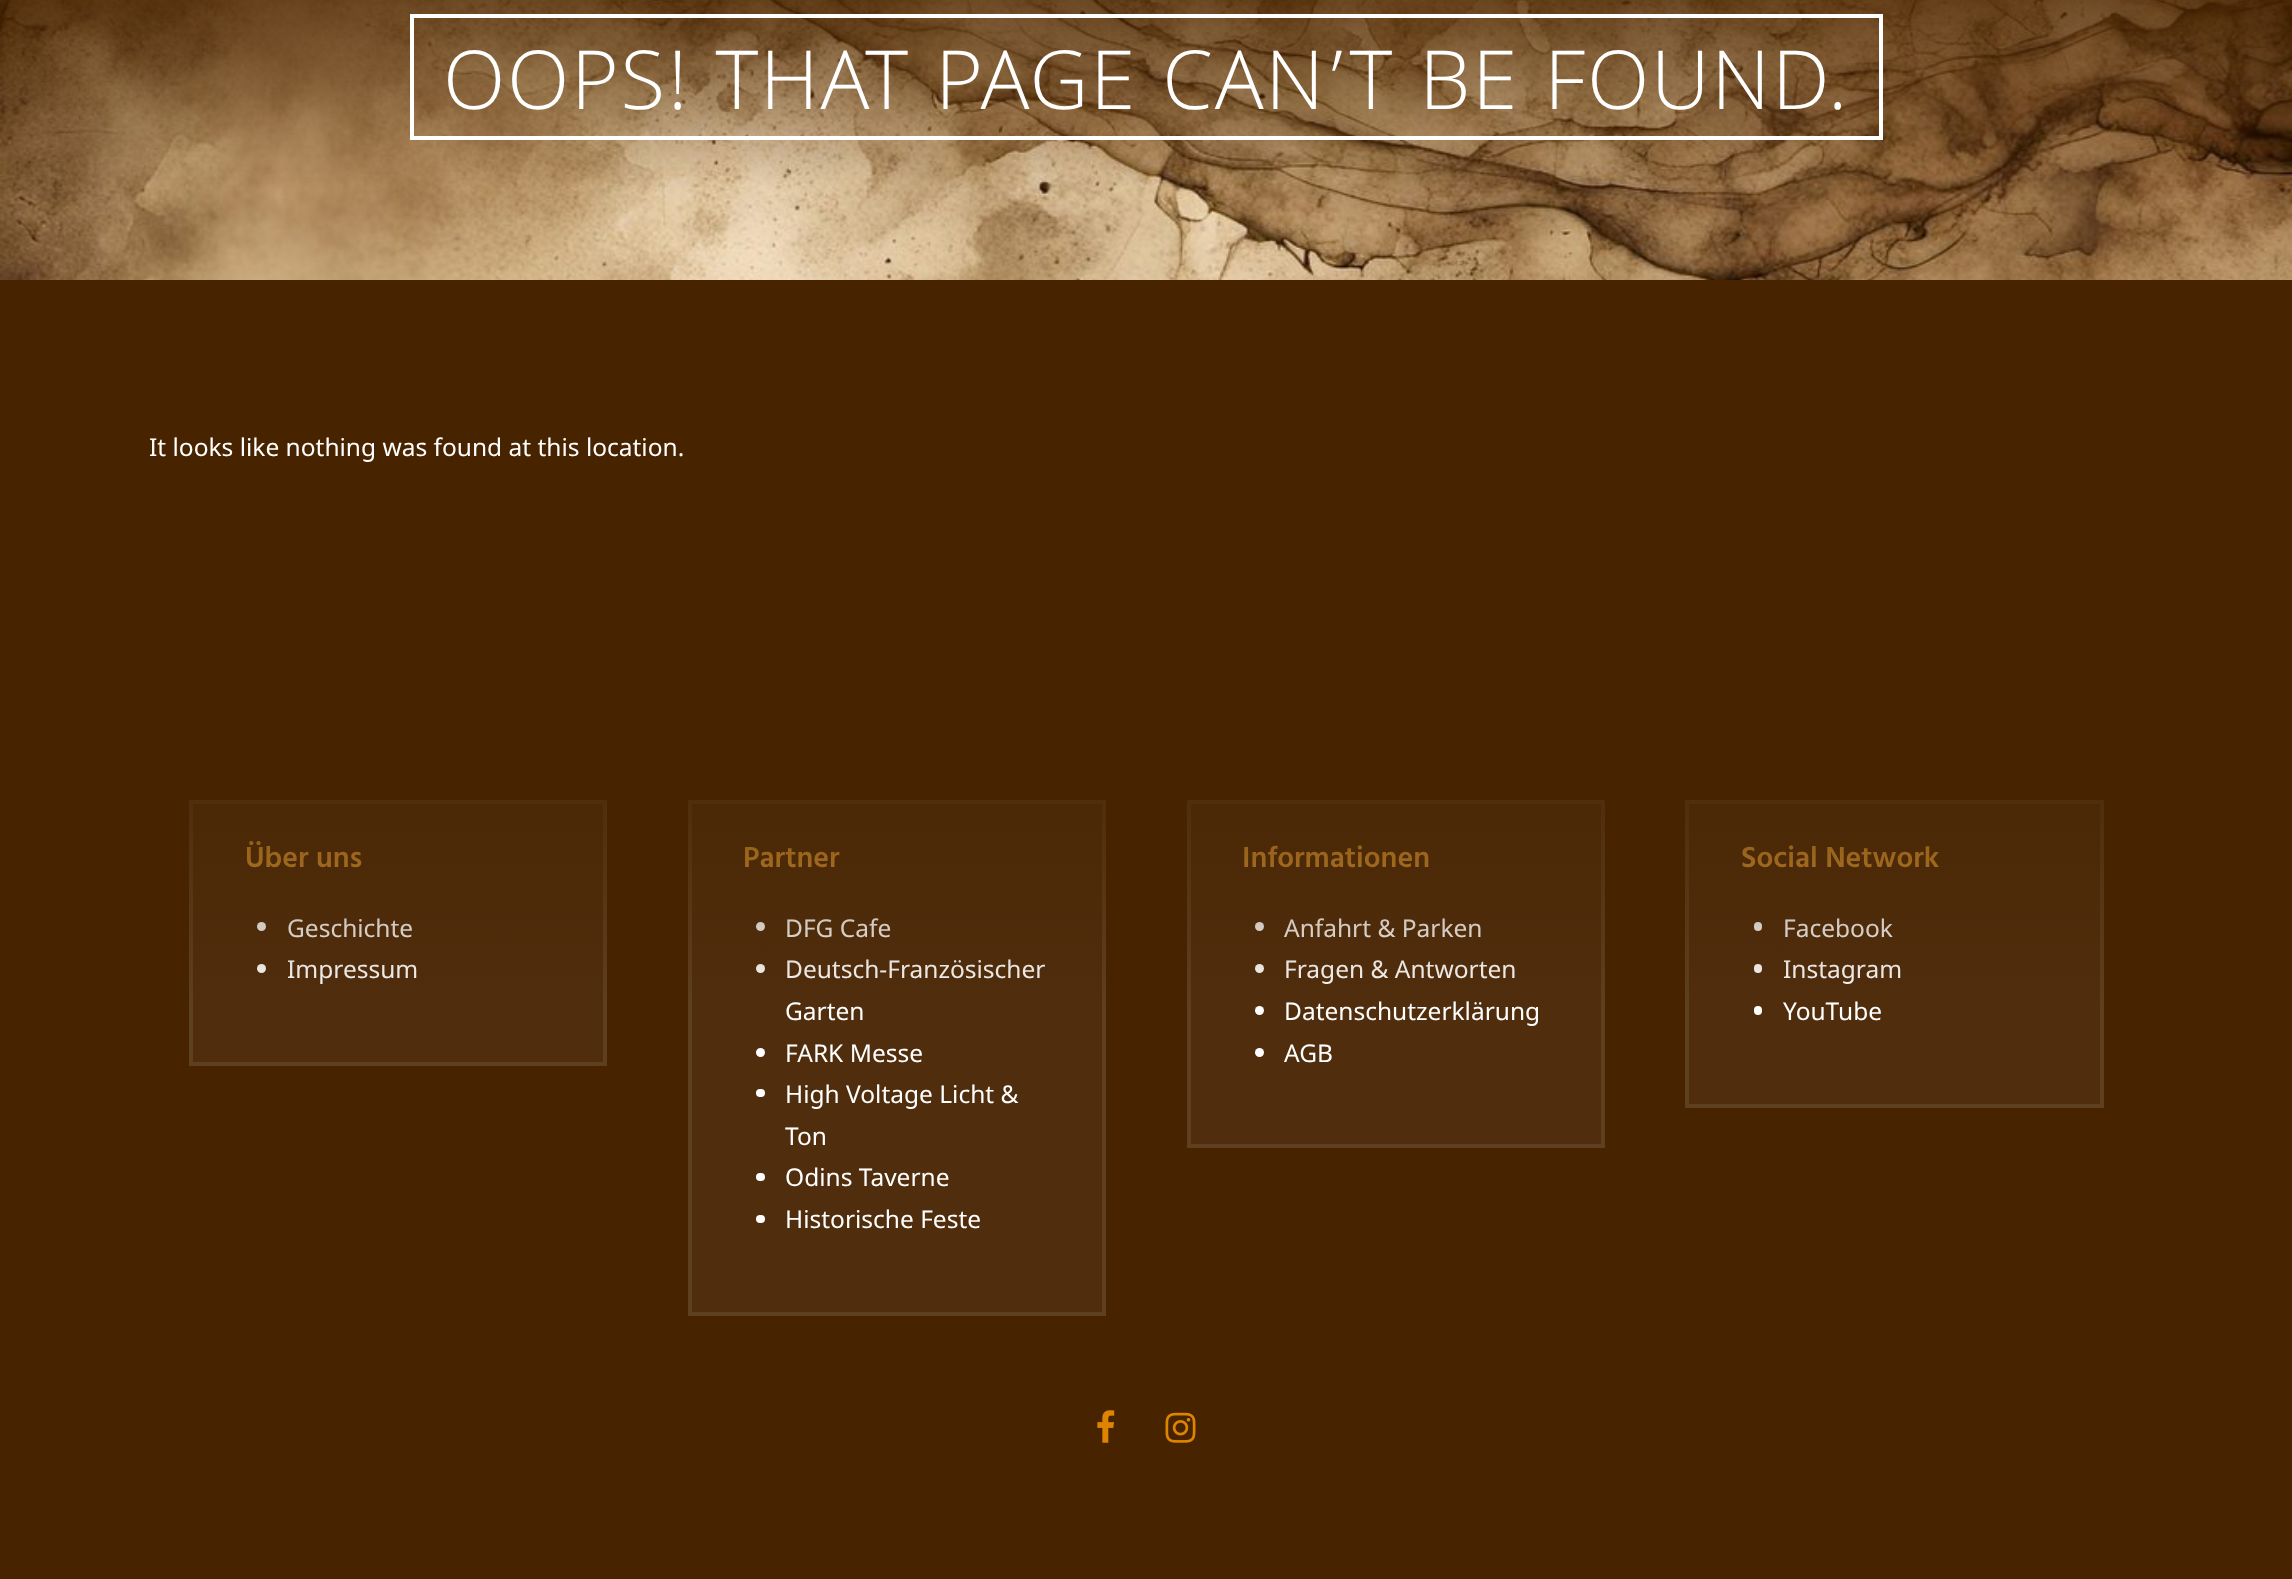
<svg xmlns="http://www.w3.org/2000/svg" xmlns:xlink="http://www.w3.org/1999/xlink" width="2292" height="1579" viewBox="0 0 2292 1579">
<style>
.cls-1{font:300 87.5px Khula;letter-spacing:1.75px;fill:#ffffff}
.cls-2{font:24.5px Noto Sans;fill:#ffffff}
.cls-3{font:600 29.75px Hind;fill:#dd9933}
</style>
<defs>
<linearGradient id="g1" gradientUnits="userSpaceOnUse" x1="1146" y1="660" x2="1146" y2="1010"><stop offset="0" stop-color="#472300"/><stop offset="1" stop-color="#472300" stop-opacity="0"/></linearGradient>
</defs>
<rect width="100%" height="100%" fill="#472300"/>
<image xlink:href="image0.png" x="0" y="0" width="2292" height="280"/>
<rect fill="none" stroke="#ffffff" stroke-width="4" x="412" y="16" width="1469" height="122"/>
<rect fill="#502e0d" stroke="#5e3f20" stroke-width="4" x="191" y="802" width="414" height="262"/>
<circle fill="#ffffff" cx="261.5" cy="926.5" r="4.5"/>
<circle fill="#ffffff" cx="261.5" cy="968.5" r="4.5"/>
<rect fill="#502e0d" stroke="#5e3f20" stroke-width="4" x="690" y="802" width="414" height="512"/>
<circle fill="#ffffff" cx="760.5" cy="926.5" r="4.5"/>
<circle fill="#ffffff" cx="760.5" cy="968.5" r="4.5"/>
<circle fill="#ffffff" cx="760.5" cy="1052.5" r="4.5"/>
<rect fill="#ffffff" x="756" y="1089" width="9" height="8" rx="4"/>
<rect fill="#ffffff" x="756" y="1173" width="9" height="8" rx="4"/>
<rect fill="#ffffff" x="756" y="1215" width="9" height="8" rx="4"/>
<rect fill="#502e0d" stroke="#5e3f20" stroke-width="4" x="1189" y="802" width="414" height="344"/>
<circle fill="#ffffff" cx="1259.5" cy="926.5" r="4.5"/>
<circle fill="#ffffff" cx="1259.5" cy="968.5" r="4.5"/>
<circle fill="#ffffff" cx="1259.5" cy="1010.5" r="4.5"/>
<circle fill="#ffffff" cx="1259.5" cy="1052.5" r="4.5"/>
<rect fill="#502e0d" stroke="#5e3f20" stroke-width="4" x="1687" y="802" width="415" height="304"/>
<rect fill="#ffffff" x="1754" y="922" width="8" height="9" rx="4"/>
<rect fill="#ffffff" x="1754" y="964" width="8" height="9" rx="4"/>
<rect fill="#ffffff" x="1754" y="1006" width="8" height="9" rx="4"/>
<image xlink:href="image1.png" x="1097" y="1410" width="18" height="33"/>
<image xlink:href="image2.png" x="1165" y="1412" width="31" height="31"/>
<text class="cls-1" x="443" y="109">OOPS! THAT PAGE CAN’T BE FOUND.</text>
<text class="cls-2" x="149" y="456">It looks like nothing was found at this location.</text>
<text class="cls-3" x="245" y="867">Über uns</text>
<text class="cls-2"><tspan x="287" y="937">Geschichte</tspan><tspan x="287" y="978">Impressum</tspan></text>
<text class="cls-3" x="743" y="867">Partner</text>
<text class="cls-2"><tspan x="785" y="937">DFG Cafe</tspan><tspan x="785" y="978">Deutsch-Französischer</tspan><tspan x="785" y="1020">Garten</tspan><tspan x="785" y="1062">FARK Messe</tspan><tspan x="785" y="1103">High Voltage Licht &amp;</tspan><tspan x="785" y="1145">Ton</tspan><tspan x="785" y="1186">Odins Taverne</tspan><tspan x="785" y="1228">Historische Feste</tspan></text>
<text class="cls-3" x="1242" y="867">Informationen</text>
<text class="cls-2"><tspan x="1284" y="937">Anfahrt &amp; Parken</tspan><tspan x="1284" y="978">Fragen &amp; Antworten</tspan><tspan x="1284" y="1020">Datenschutzerklärung</tspan><tspan x="1284" y="1062">AGB</tspan></text>
<text class="cls-3" x="1741" y="867">Social Network</text>
<text class="cls-2"><tspan x="1783" y="937">Facebook</tspan><tspan x="1783" y="978">Instagram</tspan><tspan x="1783" y="1020">YouTube</tspan></text>
<rect fill="url(#g1)" x="189" y="800" width="1915" height="202"/>
</svg>
